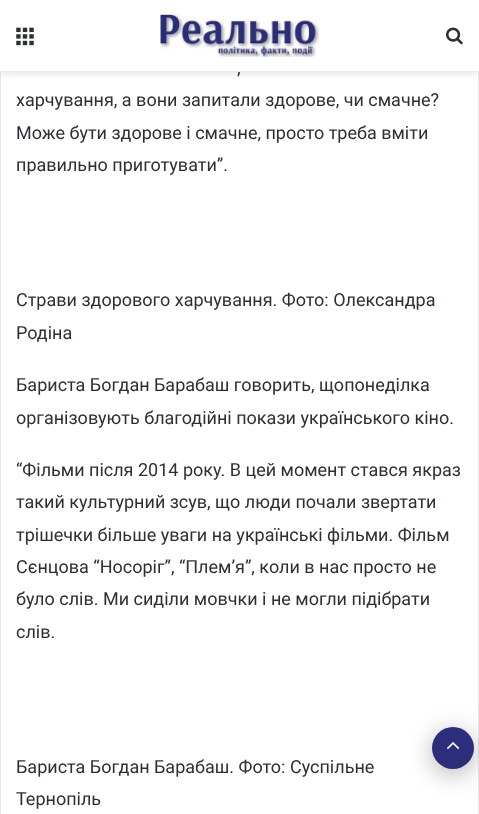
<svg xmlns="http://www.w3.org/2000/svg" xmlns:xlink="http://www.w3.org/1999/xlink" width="479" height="814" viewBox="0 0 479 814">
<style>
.cls-1{font:18px Roboto;fill:#2c2f34}
</style>
<defs>
<clipPath id="clip1"><rect x="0" y="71" width="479" height="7"/></clipPath>
</defs>
<rect width="100%" height="100%" fill="#ffffff"/>
<rect fill="none" stroke="#e6e6e6" x="0.5" y="-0.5" width="478" height="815"/>
<g clip-path="url(#clip1)">
<rect fill="#636363" fill-opacity="0.2" filter="blur(4px)" x="0" y="2" width="479" height="71"/>
</g>
<rect fill="#ffffff" fill-opacity="0.95" x="0" y="0" width="479" height="71"/>
<image xlink:href="image0.png" x="16" y="27" width="18" height="19"/>
<image xlink:href="image1.png" x="160" y="14" width="159" height="43"/>
<image xlink:href="image2.png" x="446" y="27" width="17" height="18"/>
<rect fill="#000000" fill-opacity="0.3" filter="blur(12.5px)" x="432" y="732" width="42" height="42" rx="21"/>
<circle fill="#2c2e7b" cx="453" cy="748" r="21"/>
<image xlink:href="image3.png" x="447" y="742" width="13" height="8"/>
<text class="cls-1" x="237" y="74">,</text>
<text class="cls-1"><tspan x="16" y="106">харчування, а вони запитали здорове, чи смачне?</tspan><tspan x="16" y="139">Може бути здорове і смачне, просто треба вміти</tspan><tspan x="16" y="171">правильно приготувати”.</tspan></text>
<text class="cls-1"><tspan x="16" y="306">Страви здорового харчування. Фото: Олександра</tspan><tspan x="16" y="339">Родіна</tspan></text>
<text class="cls-1"><tspan x="16" y="391">Бариста Богдан Барабаш говорить, щопонеділка</tspan><tspan x="16" y="424">організовують благодійні покази українського кіно.</tspan></text>
<text class="cls-1"><tspan x="16" y="476">“Фільми після 2014 року. В цей момент стався якраз</tspan><tspan x="16" y="508">такий культурний зсув, що люди почали звертати</tspan><tspan x="16" y="541">трішечки більше уваги на українські фільми. Фільм</tspan><tspan x="16" y="573">Сєнцова “Носоріг”, “Плем’я”, коли в нас просто не</tspan><tspan x="16" y="605">було слів. Ми сиділи мовчки і не могли підібрати</tspan><tspan x="16" y="638">слів.</tspan></text>
<text class="cls-1"><tspan x="16" y="773">Бариста Богдан Барабаш. Фото: Суспільне</tspan><tspan x="16" y="805">Тернопіль</tspan></text>
</svg>
